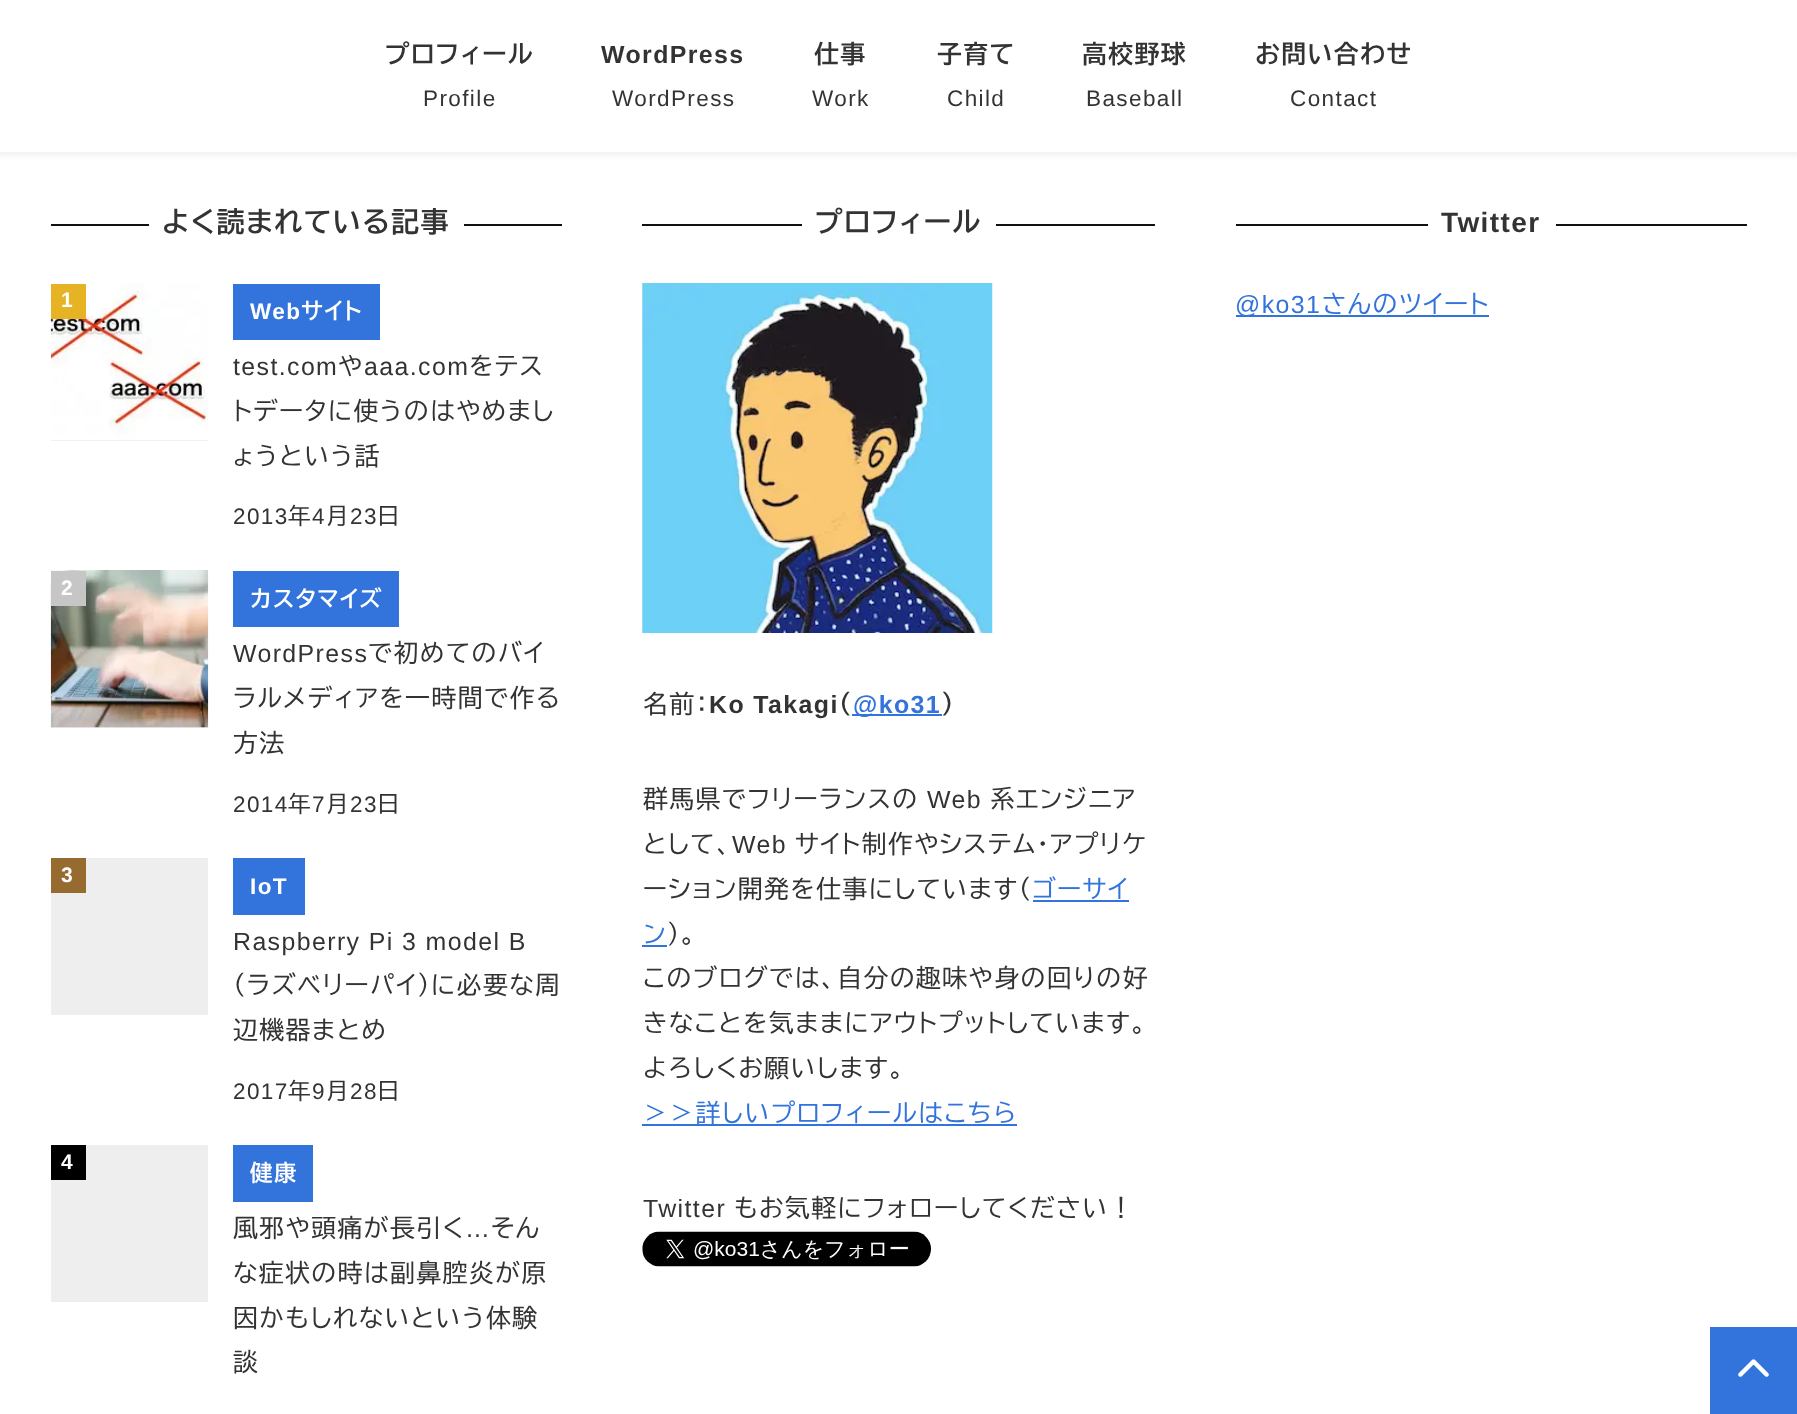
<svg xmlns="http://www.w3.org/2000/svg" xmlns:xlink="http://www.w3.org/1999/xlink" width="1797" height="1414" viewBox="0 0 1797 1414">
<style>
.cls-1{font:bold 24.9px BIZ UDPGothic;letter-spacing:1.4px;fill:#333333}
.cls-2{font:22.5px Liberation Sans;letter-spacing:1.4px;fill:#333333}
.cls-3{font:bold 24.9px Liberation Sans;letter-spacing:1.4px;fill:#333333}
.cls-4{font:bold 28px BIZ UDPGothic;letter-spacing:1.4px;fill:#333333}
.cls-5{font:bold 21px Liberation Sans;letter-spacing:1.4px;fill:#ffffff}
.cls-6{font:bold 22.5px Liberation Sans;letter-spacing:1.4px;fill:#ffffff}
.cls-7{font:bold 22.5px BIZ UDPGothic;letter-spacing:1.4px;fill:#ffffff}
.cls-8{font:24.9px Liberation Sans;letter-spacing:1.4px;fill:#333333}
.cls-9{font:24.9px BIZ UDPGothic;letter-spacing:1.4px;fill:#333333}
.cls-10{font:22.5px BIZ UDPGothic;letter-spacing:1.4px;fill:#333333}
.cls-11{font:bold 24.9px Liberation Sans;letter-spacing:1.4px;fill:#3273dc}
.cls-12{font:24.9px BIZ UDPGothic;letter-spacing:1.4px;fill:#3273dc}
.cls-13{font:bold 28px Liberation Sans;letter-spacing:1.4px;fill:#333333}
.cls-14{font:24.9px Liberation Sans;letter-spacing:1.4px;fill:#3273dc}
</style>
<rect width="100%" height="100%" fill="#ffffff"/>
<rect fill="#000000" fill-opacity="0.05" filter="blur(2px)" x="-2" y="0" width="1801" height="156"/>
<rect fill="#ffffff" x="0" y="0" width="1797" height="152"/>
<rect fill="#111111" x="51" y="224" width="98" height="2"/>
<rect fill="#111111" x="464" y="224" width="98" height="2"/>
<rect fill="#eeeeee" x="51" y="440" width="157" height="1"/>
<image xlink:href="image0.png" x="50" y="283" width="158" height="158"/>
<rect fill="#e6b324" x="51" y="284" width="35" height="35"/>
<rect fill="#3273dc" x="233" y="284" width="147" height="56"/>
<rect fill="#eeeeee" x="51" y="727" width="157" height="1"/>
<image xlink:href="image1.png" x="50" y="570" width="159" height="158"/>
<rect fill="#c7c6c6" x="51" y="571" width="35" height="35"/>
<rect fill="#3273dc" x="233" y="571" width="166" height="56"/>
<rect fill="#eeeeee" x="51" y="858" width="157" height="157"/>
<rect fill="#976b2f" x="51" y="858" width="35" height="35"/>
<rect fill="#3273dc" x="233" y="858" width="72" height="57"/>
<rect fill="#eeeeee" x="51" y="1145" width="157" height="157"/>
<rect fill="#000000" x="51" y="1145" width="35" height="35"/>
<rect fill="#3273dc" x="233" y="1145" width="80" height="57"/>
<rect fill="#111111" x="642" y="224" width="160" height="2"/>
<rect fill="#111111" x="996" y="224" width="159" height="2"/>
<image xlink:href="image2.png" x="642" y="283" width="351" height="350"/>
<rect fill="#3273dc" x="852" y="714" width="90" height="2"/>
<rect fill="#3273dc" x="1033" y="900" width="96" height="2"/>
<rect fill="#3273dc" x="642" y="945" width="25" height="2"/>
<rect fill="#3273dc" x="642" y="1124" width="375" height="2"/>
<image xlink:href="image3.png" x="642" y="1231" width="289" height="36"/>
<rect fill="#111111" x="1236" y="224" width="192" height="2"/>
<rect fill="#111111" x="1556" y="224" width="191" height="2"/>
<rect fill="#3273dc" x="1236" y="315" width="253" height="2"/>
<rect fill="#3273dc" x="1710" y="1327" width="87" height="87"/>
<image xlink:href="image4.png" x="1738" y="1359" width="31" height="18"/>
<text class="cls-1" x="385" y="63">プロフィール</text>
<text class="cls-2" x="423" y="106">Profile</text>
<text class="cls-3" x="601" y="63">WordPress</text>
<text class="cls-2" x="612" y="106">WordPress</text>
<text class="cls-1" x="814" y="63">仕事</text>
<text class="cls-2" x="812" y="106">Work</text>
<text class="cls-1" x="937" y="63">子育て</text>
<text class="cls-2" x="947" y="106">Child</text>
<text class="cls-1" x="1082" y="63">高校野球</text>
<text class="cls-2" x="1086" y="106">Baseball</text>
<text class="cls-1" x="1255" y="63">お問い合わせ</text>
<text class="cls-2" x="1290" y="106">Contact</text>
<text class="cls-4" x="162" y="232">よく読まれている記事</text>
<text class="cls-5" x="61" y="307">1</text>
<text class="cls-6" x="250" y="319">Web</text>
<text class="cls-7" x="301" y="319">サイト</text>
<text class="cls-8" x="233" y="375">test.com</text>
<text class="cls-9" x="338" y="375">や</text>
<text class="cls-8" x="364" y="375">aaa.com</text>
<text class="cls-9" x="469" y="375">をテス</text>
<text class="cls-9"><tspan x="233" y="420">トデータに使うのはやめまし</tspan><tspan x="233" y="465">ょうという話</tspan></text>
<text class="cls-2" x="233" y="524">2013</text>
<text class="cls-10" x="288" y="524">年</text>
<text class="cls-2" x="312" y="524">4</text>
<text class="cls-10" x="326" y="524">月</text>
<text class="cls-2" x="350" y="524">23</text>
<text class="cls-10" x="377" y="524">日</text>
<text class="cls-5" x="61" y="595">2</text>
<text class="cls-7" x="250" y="607">カスタマイズ</text>
<text class="cls-8" x="233" y="662">WordPress</text>
<text class="cls-9" x="368" y="662">で初めてのバイ</text>
<text class="cls-9"><tspan x="233" y="707">ラルメディアを一時間で作る</tspan><tspan x="233" y="752">方法</tspan></text>
<text class="cls-2" x="233" y="812">2014</text>
<text class="cls-10" x="288" y="812">年</text>
<text class="cls-2" x="312" y="812">7</text>
<text class="cls-10" x="326" y="812">月</text>
<text class="cls-2" x="350" y="812">23</text>
<text class="cls-10" x="377" y="812">日</text>
<text class="cls-5" x="61" y="882">3</text>
<text class="cls-6" x="250" y="894">IoT</text>
<text class="cls-8" x="233" y="950">Raspberry Pi 3 model B</text>
<text class="cls-9"><tspan x="233" y="994">（ラズベリーパイ）に必要な周</tspan><tspan x="233" y="1039">辺機器まとめ</tspan></text>
<text class="cls-2" x="233" y="1099">2017</text>
<text class="cls-10" x="288" y="1099">年</text>
<text class="cls-2" x="312" y="1099">9</text>
<text class="cls-10" x="326" y="1099">月</text>
<text class="cls-2" x="350" y="1099">28</text>
<text class="cls-10" x="377" y="1099">日</text>
<text class="cls-5" x="61" y="1169">4</text>
<text class="cls-7" x="250" y="1181">健康</text>
<text class="cls-9" x="233" y="1237">風邪や頭痛が長引く</text>
<text class="cls-8" x="465" y="1237">…</text>
<text class="cls-9" x="491" y="1237">そん</text>
<text class="cls-9"><tspan x="233" y="1282">な症状の時は副鼻腔炎が原</tspan><tspan x="233" y="1327">因かもしれないという体験</tspan><tspan x="233" y="1371">談</tspan></text>
<text class="cls-4" x="815" y="232">プロフィール</text>
<text class="cls-9" x="643" y="713">名前：</text>
<text class="cls-3" x="709" y="713">Ko Takagi</text>
<text class="cls-1" x="839" y="713">（</text>
<text class="cls-11" x="853" y="713">@ko31</text>
<text class="cls-1" x="941" y="713">）</text>
<text class="cls-9" x="643" y="808">群馬県でフリーランスの</text>
<text class="cls-8" x="927" y="808">Web</text>
<text class="cls-9" x="990" y="808">系エンジニア</text>
<text class="cls-9" x="643" y="853">として、</text>
<text class="cls-8" x="732" y="853">Web</text>
<text class="cls-9" x="795" y="853">サイト制作やシステム・アプリケ</text>
<text class="cls-9" x="643" y="898">ーション開発を仕事にしています（</text>
<text class="cls-12" x="1032" y="898">ゴーサイ</text>
<text class="cls-12" x="643" y="943">ン</text>
<text class="cls-9" x="667" y="943">）。</text>
<text class="cls-9"><tspan x="643" y="987">このブログでは、自分の趣味や身の回りの好</tspan><tspan x="643" y="1032">きなことを気ままにアウトプットしています。</tspan><tspan x="643" y="1077">よろしくお願いします。</tspan></text>
<text class="cls-12" x="643" y="1122">＞＞詳しいプロフィールはこちら</text>
<text class="cls-8" x="643" y="1217">Twitter</text>
<text class="cls-9" x="734" y="1217">もお気軽にフォローしてください！</text>
<text class="cls-13" x="1441" y="232">Twitter</text>
<text class="cls-14" x="1235" y="313">@ko31</text>
<text class="cls-12" x="1322" y="313">さんのツイート</text>
</svg>
